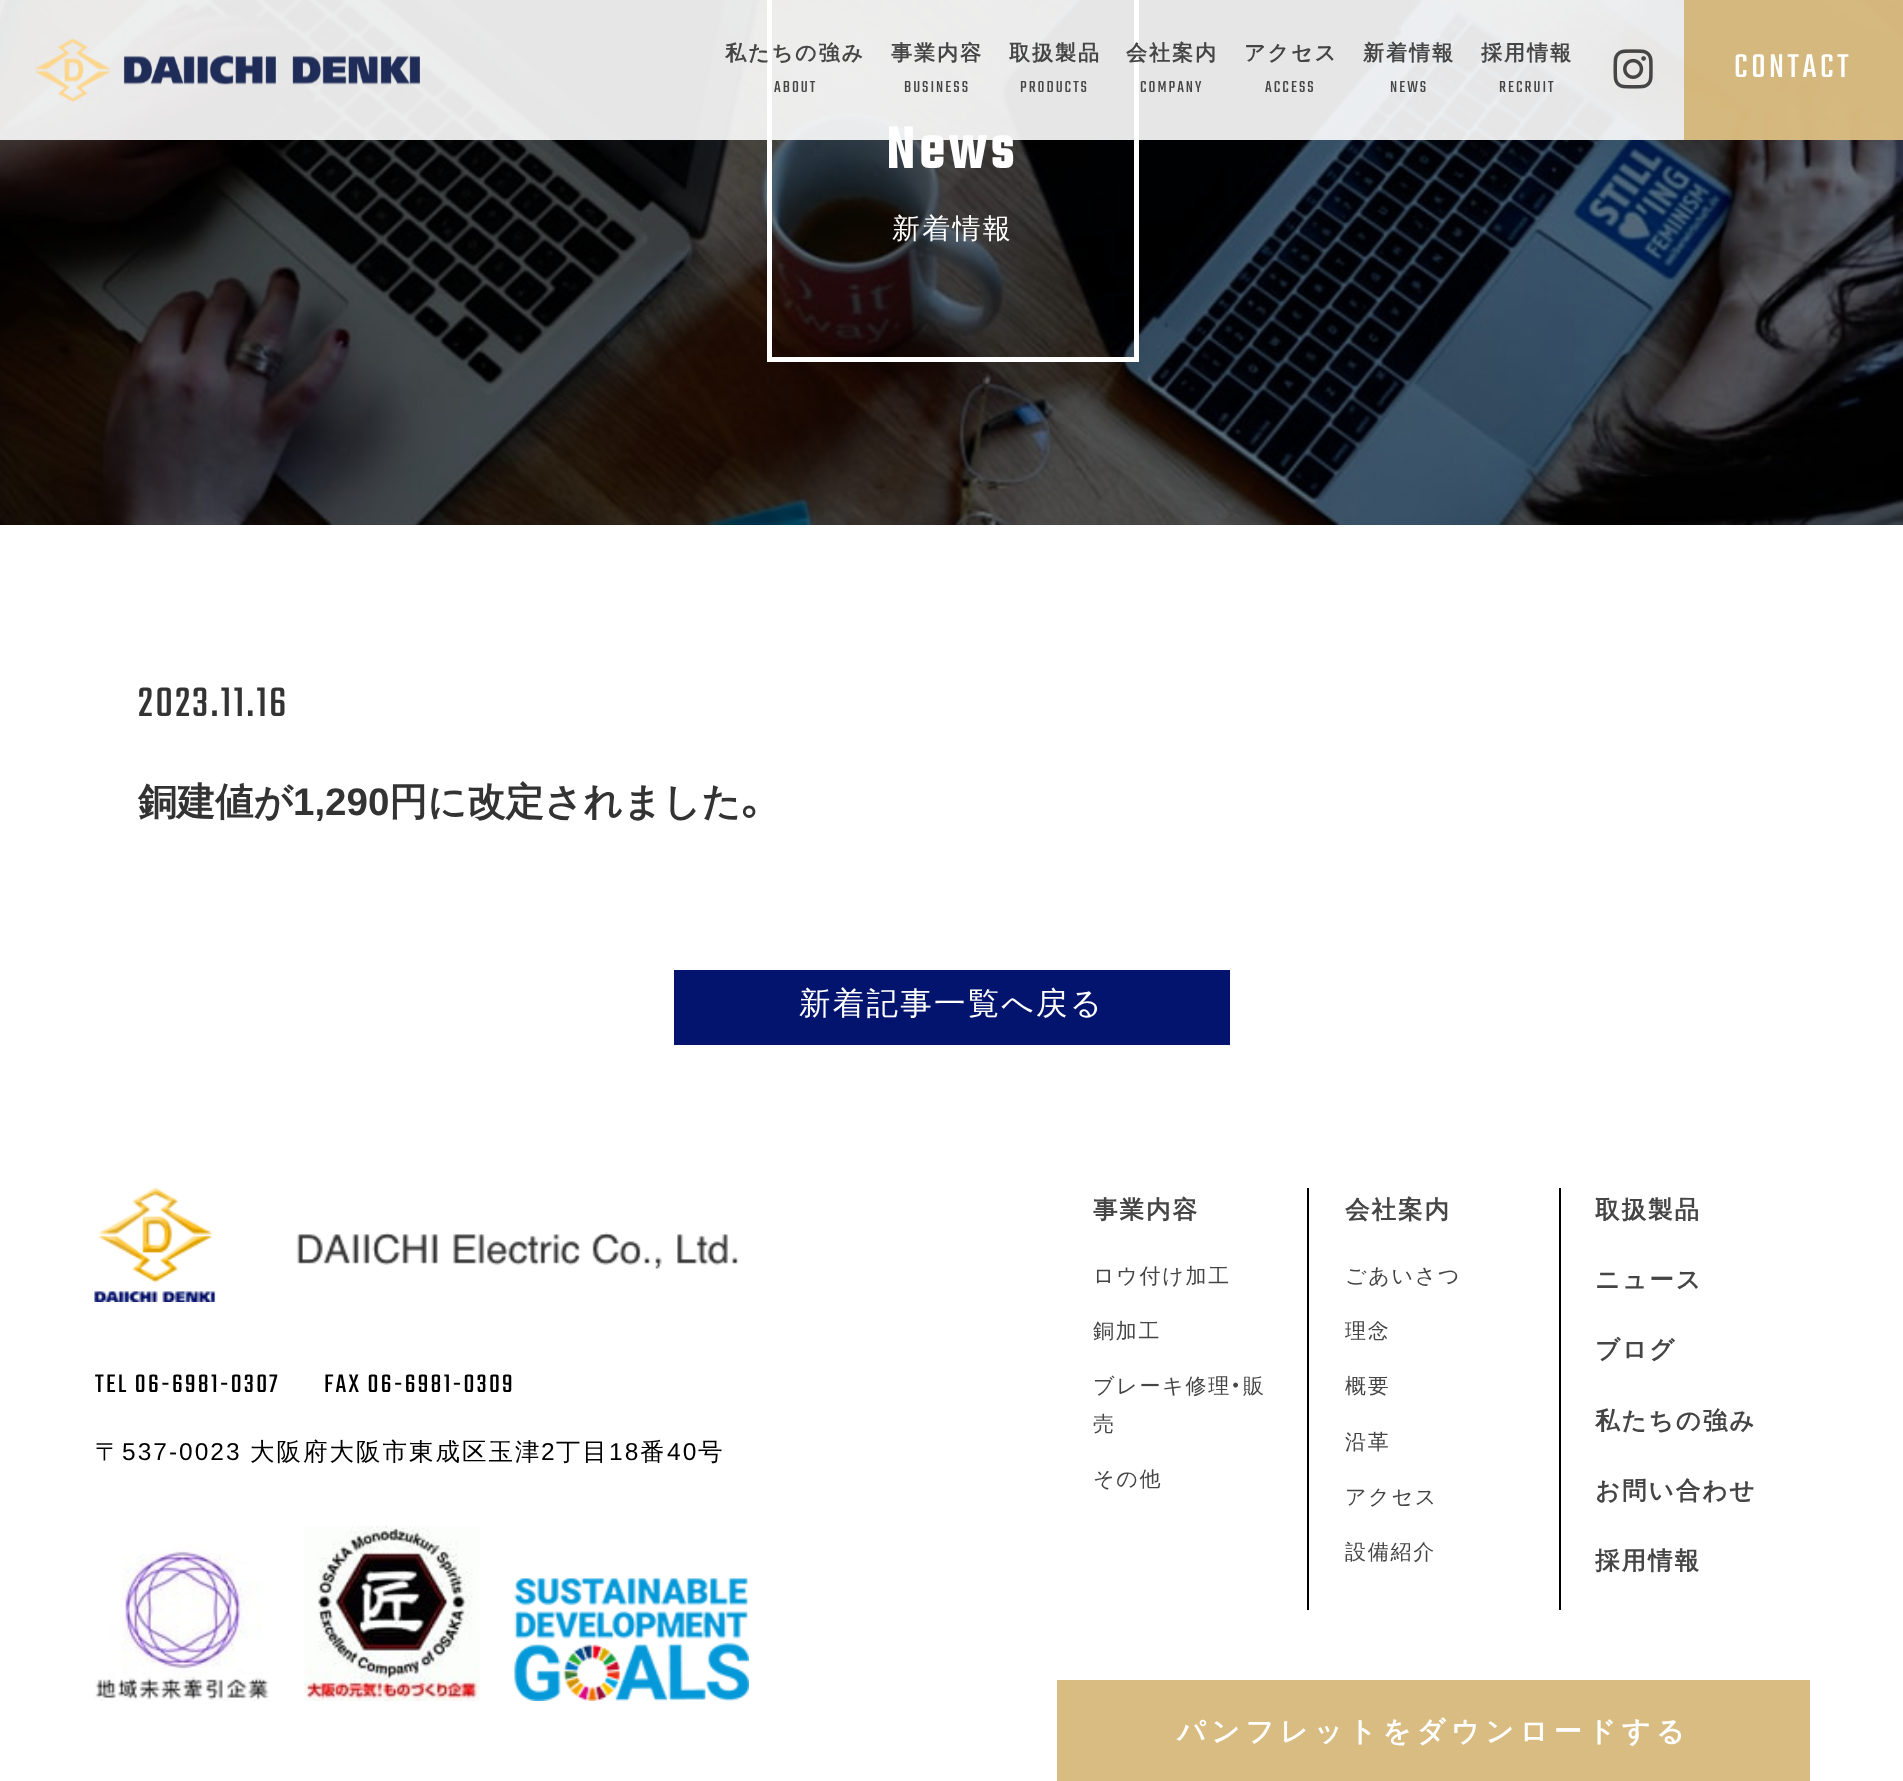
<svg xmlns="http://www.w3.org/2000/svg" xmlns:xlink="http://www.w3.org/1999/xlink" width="1903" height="1781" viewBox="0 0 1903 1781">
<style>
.cls-1{font:bold 63px Teko;letter-spacing:5px;fill:#ffffff}
.cls-2{font:36.5px Teko;letter-spacing:3.5px;fill:#ffffff}
.cls-3{font:17.5px Teko;letter-spacing:2px;fill:#454545}
.cls-4{font:bold 21px WenQuanYi Zen Hei;letter-spacing:2px;fill:#454545}
.cls-5{font:500 28px WenQuanYi Zen Hei;letter-spacing:2.25px;fill:#ffffff}
.cls-6{font:45.5px Teko;letter-spacing:2.25px;fill:#333333}
.cls-7{font:bold 38.5px WenQuanYi Zen Hei;fill:#333333}
.cls-8{font:bold 38.5px Liberation Sans;fill:#333333}
.cls-9{font:bold 38.5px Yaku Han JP;fill:#333333}
.cls-10{font:500 31.5px WenQuanYi Zen Hei;letter-spacing:2.25px;fill:#ffffff}
.cls-11{font:28px Teko;letter-spacing:2.25px;fill:#000000}
.cls-12{font:500 24.5px WenQuanYi Zen Hei;letter-spacing:2px;fill:#000000}
.cls-13{font:24.5px Liberation Sans;letter-spacing:2px;fill:#000000}
.cls-14{font:bold 24.5px WenQuanYi Zen Hei;letter-spacing:2px;fill:#454545}
.cls-15{font:500 21px WenQuanYi Zen Hei;letter-spacing:1.75px;fill:#454545}
.cls-16{font:500 21px Yaku Han JP;letter-spacing:1.75px;fill:#454545}
.cls-17{font:bold 28px WenQuanYi Zen Hei;letter-spacing:5.6px;fill:#ffffff}
</style>
<rect width="100%" height="100%" fill="#ffffff"/>
<rect fill="#000000" x="0" y="0" width="1903" height="525"/>
<image xlink:href="image2.png" x="0" y="0" width="1903" height="525"/>
<rect fill="#ffffff" x="1134" y="0" width="5" height="362"/>
<rect fill="#ffffff" x="767" y="357" width="372" height="5"/>
<rect fill="#ffffff" x="767" y="0" width="5" height="362"/>
<rect fill="#03146e" x="674" y="970" width="556" height="75"/>
<image xlink:href="image3.png" x="94" y="1188" width="645" height="114"/>
<image xlink:href="image4.png" x="94" y="1544" width="176" height="157"/>
<image xlink:href="image5.png" x="304" y="1526" width="176" height="175"/>
<image xlink:href="image6.png" x="514" y="1578" width="235" height="123"/>
<rect fill="#000000" x="1307" y="1188" width="2" height="422"/>
<rect fill="#000000" x="1559" y="1188" width="2" height="422"/>
<rect fill="#d9bc81" x="1057" y="1680" width="753" height="101"/>
<text class="cls-1" x="886" y="168">News</text>
<rect fill="#ffffff" fill-opacity="0.9" x="0" y="0" width="1903" height="140"/>
<rect fill="#d0ab62" fill-opacity="0.8" x="1684" y="0" width="219" height="140"/>
<text class="cls-2" x="1734" y="77">CONTACT</text>
<image xlink:href="image1.png" x="1613" y="49" width="40" height="40"/>
<text class="cls-3" x="1499" y="92">RECRUIT</text>
<text class="cls-4" x="1481" y="60">採用情報</text>
<text class="cls-3" x="1390" y="92">NEWS</text>
<text class="cls-4" x="1363" y="60">新着情報</text>
<text class="cls-3" x="1265" y="92">ACCESS</text>
<text class="cls-4" x="1244" y="60">アクセス</text>
<text class="cls-3" x="1140" y="92">COMPANY</text>
<text class="cls-4" x="1126" y="60">会社案内</text>
<text class="cls-3" x="1020" y="92">PRODUCTS</text>
<text class="cls-4" x="1009" y="60">取扱製品</text>
<text class="cls-3" x="904" y="92">BUSINESS</text>
<text class="cls-4" x="891" y="60">事業内容</text>
<text class="cls-3" x="774" y="92">ABOUT</text>
<text class="cls-4" x="725" y="60">私たちの強み</text>
<image xlink:href="image0.png" x="35" y="38" width="385" height="64"/>
<text class="cls-5" x="892" y="238">新着情報</text>
<text class="cls-6" x="138" y="716">2023.11.16</text>
<text class="cls-7" x="138" y="815">銅建値が</text>
<text class="cls-8" x="293" y="815">1,290</text>
<text class="cls-7" x="389" y="815">円に改定されました</text>
<text class="cls-9" x="741" y="815">。</text>
<text class="cls-10" x="799" y="1014">新着記事一覧へ戻る</text>
<text class="cls-11" x="95" y="1392">TEL 06-6981-0307</text>
<text class="cls-11" x="324" y="1392">FAX 06-6981-0309</text>
<text class="cls-12" x="95" y="1460">〒</text>
<text class="cls-13" x="122" y="1460">537-0023</text>
<text class="cls-12" x="250" y="1460">大阪府大阪市東成区玉津</text>
<text class="cls-13" x="541" y="1460">2</text>
<text class="cls-12" x="556" y="1460">丁目</text>
<text class="cls-13" x="609" y="1460">18</text>
<text class="cls-12" x="640" y="1460">番</text>
<text class="cls-13" x="667" y="1460">40</text>
<text class="cls-12" x="698" y="1460">号</text>
<text class="cls-14" x="1093" y="1218">事業内容</text>
<text class="cls-15" x="1093" y="1283">ロウ付け加工</text>
<text class="cls-15" x="1093" y="1338">銅加工</text>
<text class="cls-15" x="1093" y="1393">ブレーキ修理</text>
<text class="cls-16" x="1230" y="1393">・</text>
<text class="cls-15" x="1243" y="1393">販</text>
<text class="cls-15" x="1093" y="1431">売</text>
<text class="cls-15" x="1093" y="1486">その他</text>
<text class="cls-14" x="1345" y="1218">会社案内</text>
<text class="cls-15" x="1345" y="1283">ごあいさつ</text>
<text class="cls-15" x="1345" y="1338">理念</text>
<text class="cls-15" x="1345" y="1393">概要</text>
<text class="cls-15" x="1345" y="1449">沿革</text>
<text class="cls-15" x="1345" y="1504">アクセス</text>
<text class="cls-15" x="1345" y="1559">設備紹介</text>
<text class="cls-14" x="1595" y="1218">取扱製品</text>
<text class="cls-14" x="1595" y="1288">ニュース</text>
<text class="cls-14" x="1595" y="1358">ブログ</text>
<text class="cls-14" x="1595" y="1429">私たちの強み</text>
<text class="cls-14" x="1595" y="1499">お問い合わせ</text>
<text class="cls-14" x="1595" y="1569">採用情報</text>
<text class="cls-17" x="1177" y="1741">パンフレットをダウンロードする</text>
</svg>
